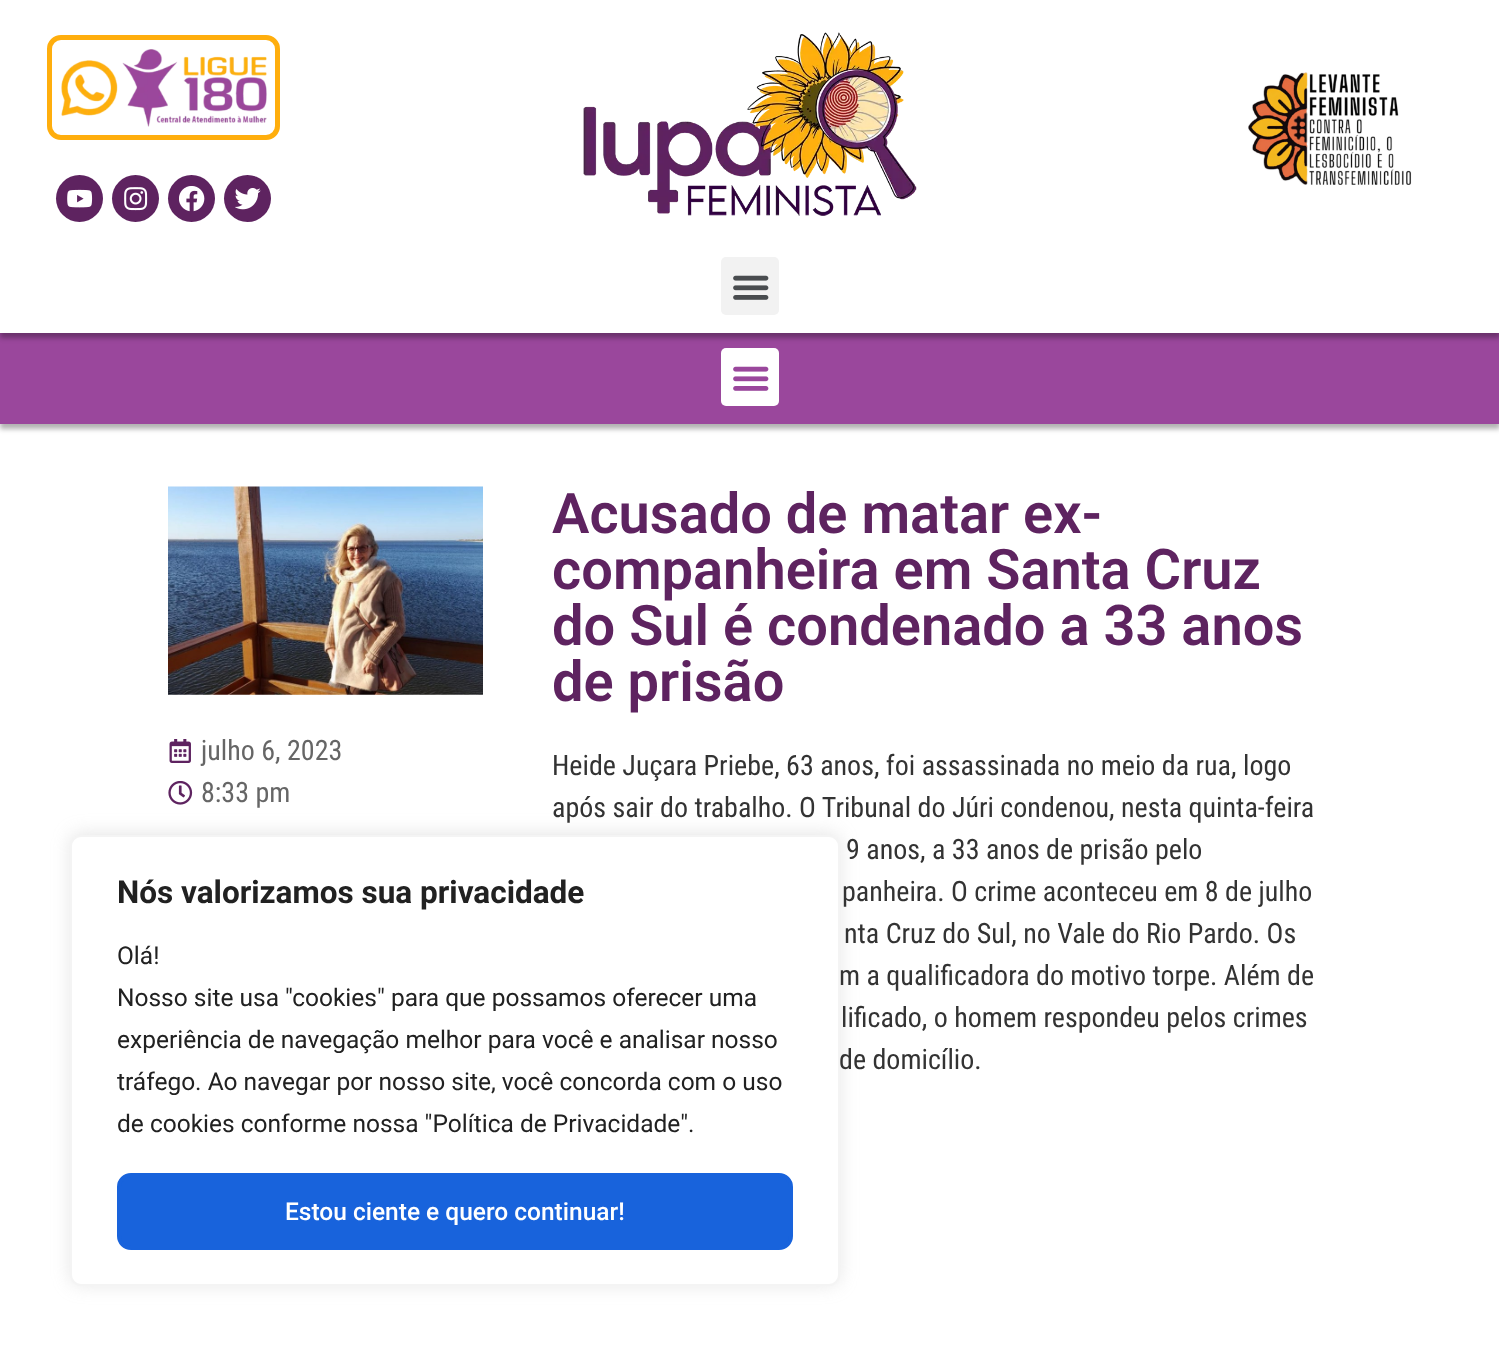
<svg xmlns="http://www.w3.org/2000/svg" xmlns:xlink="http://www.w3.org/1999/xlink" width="1499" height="1356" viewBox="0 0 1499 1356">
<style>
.cls-1{font:28px Roboto Condensed;fill:#666666}
.cls-2{font:600 56px Roboto;fill:#5e2360}
.cls-3{font:28px Roboto Condensed;fill:#333333}
.cls-4{font:bold 31.5px Roboto;fill:#212121}
.cls-5{font:24.5px Roboto;fill:#212121}
.cls-6{font:500 24.5px Roboto;fill:#ffffff}
</style>
<defs>
<clipPath id="clip1"><path d="M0 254H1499V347H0ZM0 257H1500V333H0Z" clip-rule="evenodd"/></clipPath>
</defs>
<rect width="100%" height="100%" fill="#ffffff"/>
<rect fill="none" stroke="#ffae0d" stroke-width="5" x="49.5" y="37.5" width="228" height="100" rx="11.5"/>
<image xlink:href="image0.png" x="61" y="49" width="206" height="78"/>
<circle fill="#5e2360" cx="79.5" cy="198.5" r="23.5"/>
<image xlink:href="image1.png" x="67" y="189" width="26" height="19"/>
<circle fill="#5e2360" cx="135.5" cy="198.5" r="23.5"/>
<image xlink:href="image2.png" x="124" y="187" width="24" height="24"/>
<circle fill="#5e2360" cx="191.5" cy="198.5" r="23.5"/>
<image xlink:href="image3.png" x="179" y="186" width="26" height="26"/>
<circle fill="#5e2360" cx="247.5" cy="198.5" r="23.5"/>
<image xlink:href="image4.png" x="235" y="188" width="26" height="22"/>
<image xlink:href="image5.png" x="583" y="32" width="334" height="184"/>
<image xlink:href="image6.png" x="1248" y="72" width="164" height="113"/>
<rect fill="#000000" fill-opacity="0.3" filter="blur(2.5px)" x="0" y="338" width="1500" height="91"/>
<rect fill="#9a479c" x="0" y="333" width="1499" height="91"/>
<g clip-path="url(#clip1)">
<rect fill="#000000" fill-opacity="0.3" filter="blur(2.5px)" x="0" y="263" width="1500" height="75"/>
</g>
<rect fill="#f2f2f2" x="721" y="257" width="58" height="58" rx="5"/>
<image xlink:href="image7.png" x="733" y="275" width="36" height="25"/>
<rect fill="#ffffff" x="721" y="348" width="58" height="58" rx="5"/>
<image xlink:href="image8.png" x="733" y="366" width="36" height="25"/>
<image xlink:href="image9.png" x="168" y="486" width="315" height="209"/>
<image xlink:href="image10.png" x="169" y="739" width="22" height="24"/>
<image xlink:href="image11.png" x="168" y="781" width="25" height="24"/>
<rect fill="#acabab" fill-opacity="0.3" filter="blur(9px)" x="70" y="833" width="770" height="452" rx="11"/>
<rect fill="#ffffff" stroke="#f4f4f4" stroke-width="2" x="71" y="836" width="768" height="449" rx="10"/>
<rect fill="#1863dc" stroke="#1863dc" stroke-width="4" x="119" y="1175" width="672" height="73" rx="12"/>
<text class="cls-1"><tspan x="201" y="760">julho 6, 2023</tspan><tspan x="201" y="802">8:33 pm</tspan></text>
<text class="cls-2"><tspan x="552" y="533">Acusado de matar ex-</tspan><tspan x="552" y="589">companheira em Santa Cruz</tspan><tspan x="552" y="645">do Sul é condenado a 33 anos</tspan><tspan x="552" y="701">de prisão</tspan></text>
<text class="cls-3"><tspan x="552" y="775">Heide Juçara Priebe, 63 anos, foi assassinada no meio da rua, logo</tspan><tspan x="552" y="817">após sair do trabalho. O Tribunal do Júri condenou, nesta quinta-feira</tspan></text>
<text class="cls-3" x="846" y="859">9 anos, a 33 anos de prisão pelo</text>
<text class="cls-3" x="842" y="901">panheira. O crime aconteceu em 8 de julho</text>
<text class="cls-3" x="844" y="943">nta Cruz do Sul, no Vale do Rio Pardo. Os</text>
<text class="cls-3" x="839" y="985">m a qualificadora do motivo torpe. Além de</text>
<text class="cls-3" x="841" y="1027">lificado, o homem respondeu pelos crimes</text>
<text class="cls-3" x="839" y="1069">de domicílio.</text>
<text class="cls-4" x="117" y="903">Nós valorizamos sua privacidade</text>
<text class="cls-5"><tspan x="117" y="964">Olá!</tspan><tspan x="117" y="1006">Nosso site usa "cookies" para que possamos oferecer uma</tspan><tspan x="117" y="1048">experiência de navegação melhor para você e analisar nosso</tspan><tspan x="117" y="1090">tráfego. Ao navegar por nosso site, você concorda com o uso</tspan><tspan x="117" y="1132">de cookies conforme nossa "Política de Privacidade".</tspan></text>
<text class="cls-6" x="285" y="1220">Estou ciente e quero continuar!</text>
</svg>
